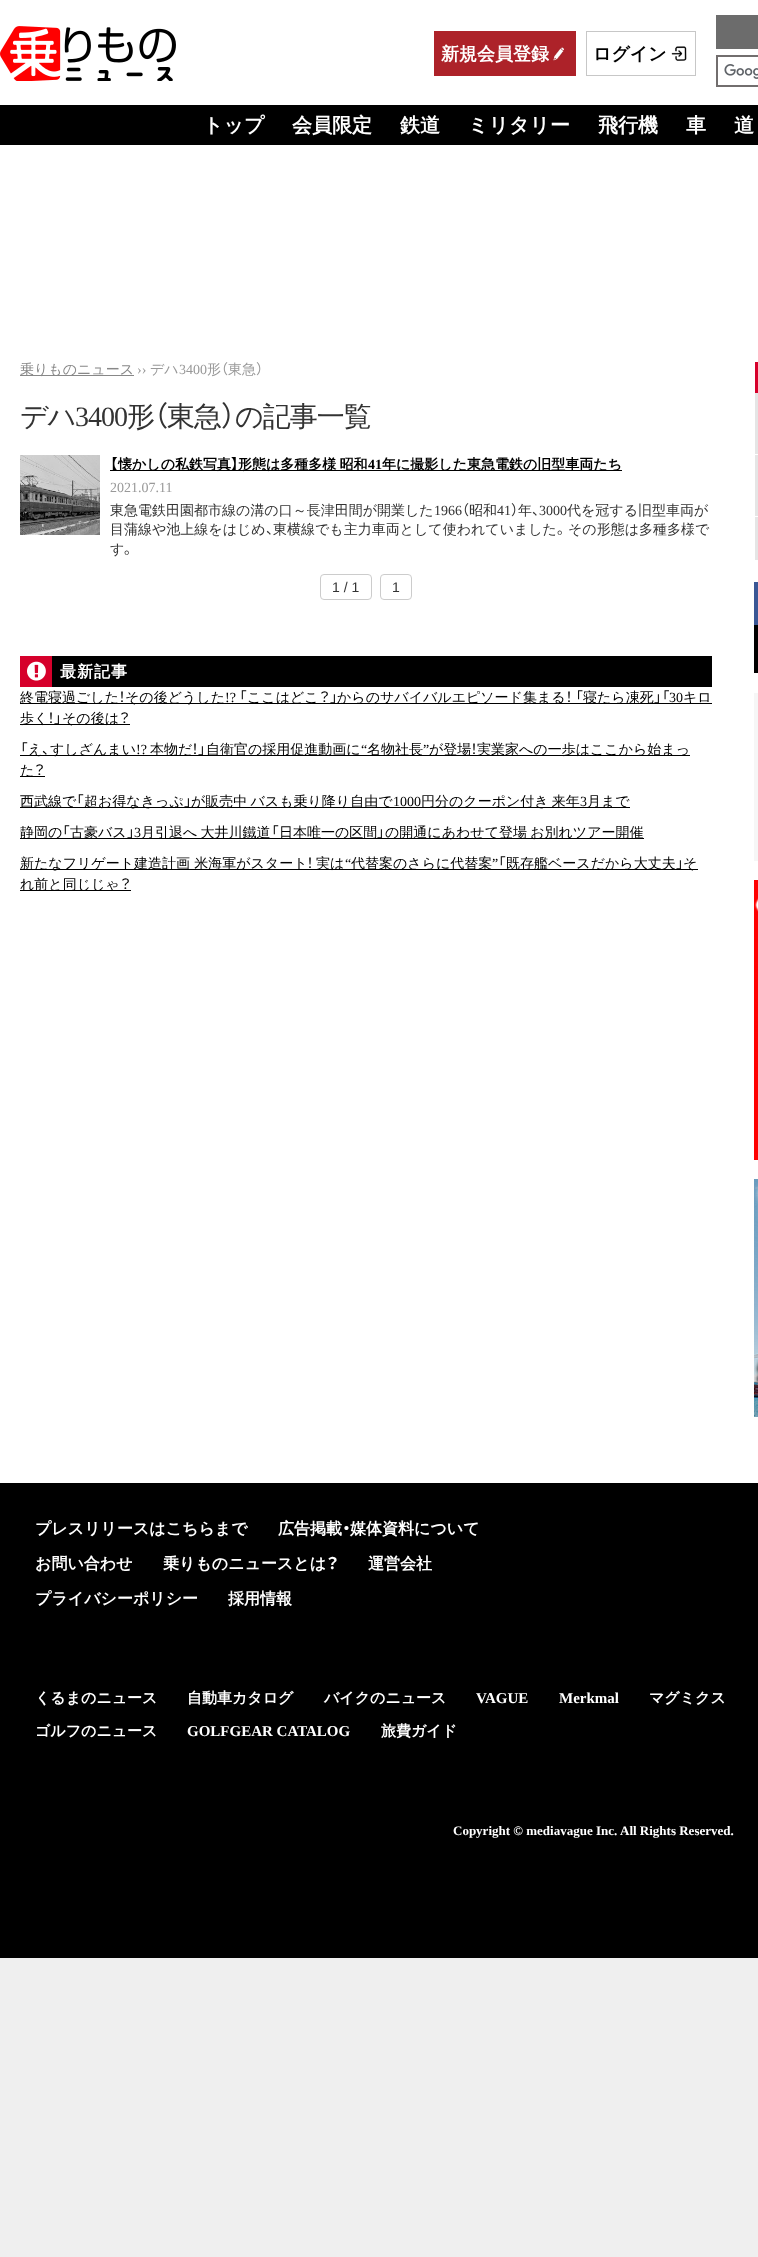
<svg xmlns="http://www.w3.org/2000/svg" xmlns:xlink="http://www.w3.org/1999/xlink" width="758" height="2257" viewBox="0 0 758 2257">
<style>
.cls-1{font:bold 18px WenQuanYi Zen Hei;fill:#ffffff}
.cls-2{font:bold 18px WenQuanYi Zen Hei;fill:#000000}
.cls-3{font:bold 20px WenQuanYi Zen Hei;fill:#ffffff}
.cls-4{font:500 14px WenQuanYi Zen Hei;fill:#888888}
.cls-5{font:14px Liberation Serif;fill:#999999}
.cls-6{font:500 14px WenQuanYi Zen Hei;fill:#999999}
.cls-7{font:14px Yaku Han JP;fill:#999999}
.cls-8{font:500 28px WenQuanYi Zen Hei;letter-spacing:-1px;fill:#333333}
.cls-9{font:28px Liberation Serif;letter-spacing:-1px;fill:#333333}
.cls-10{font:28px Yaku Han JP;letter-spacing:-1px;fill:#333333}
.cls-11{font:bold 14px Yaku Han JP;fill:#000000}
.cls-12{font:bold 14px WenQuanYi Zen Hei;fill:#000000}
.cls-13{font:bold 14px Liberation Serif;fill:#000000}
.cls-14{font:500 14px WenQuanYi Zen Hei;fill:#333333}
.cls-15{font:14px Liberation Serif;fill:#333333}
.cls-16{font:14px Yaku Han JP;fill:#333333}
.cls-17{font:14px Liberation Sans;fill:#333333}
.cls-18{font:bold 16px WenQuanYi Zen Hei;letter-spacing:1px;fill:#ffffff}
.cls-19{font:500 14px WenQuanYi Zen Hei;fill:#000000}
.cls-20{font:14px Yaku Han JP;fill:#000000}
.cls-21{font:14px Liberation Serif;fill:#000000}
.cls-22{font:bold 16px WenQuanYi Zen Hei;fill:#ffffff}
.cls-23{font:bold 16px Yaku Han JP;fill:#ffffff}
.cls-24{font:bold 15px WenQuanYi Zen Hei;fill:#ffffff}
.cls-25{font:bold 15px Liberation Serif;fill:#ffffff}
.cls-26{font:bold 13px Liberation Serif;fill:#ffffff}
</style>
<rect width="100%" height="100%" fill="#efefef"/>
<rect fill="#ffffff" x="0" y="0" width="758" height="1483"/>
<image xlink:href="image0.png" x="0" y="26" width="176" height="55"/>
<rect fill="#ad2229" x="434" y="31" width="142" height="45"/>
<image xlink:href="image1.png" x="553" y="47" width="11" height="14"/>
<rect fill="none" stroke="#c7c7c7" x="586.5" y="31.5" width="109" height="44"/>
<image xlink:href="image2.png" x="671" y="46" width="16" height="15"/>
<rect fill="#6c6c6c" x="716" y="15" width="42" height="34"/>
<image xlink:href="image3.png" x="724" y="64" width="34" height="15"/>
<rect fill="none" stroke="#726e6e" stroke-width="2" x="717" y="56" width="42" height="30"/>
<rect fill="#000000" x="0" y="105" width="758" height="40"/>
<rect fill="#888888" x="20" y="375" width="114" height="1"/>
<image xlink:href="image4.png" x="20" y="455" width="80" height="80"/>
<rect fill="#000000" x="110" y="470" width="512" height="1"/>
<rect fill="none" stroke="#cccccc" x="320.5" y="574.5" width="51" height="25" rx="3.5"/>
<rect fill="none" stroke="#cccccc" x="380.5" y="574.5" width="31" height="25" rx="3.5"/>
<rect fill="#000000" x="52" y="656" width="660" height="31"/>
<rect fill="#d6002b" x="20" y="656" width="32" height="31"/>
<image xlink:href="image5.png" x="27" y="661" width="19" height="20"/>
<rect fill="#000000" x="20" y="703" width="692" height="1"/>
<rect fill="#000000" x="20" y="724" width="110" height="1"/>
<rect fill="#000000" x="20" y="755" width="670" height="1"/>
<rect fill="#000000" x="20" y="776" width="25" height="1"/>
<rect fill="#000000" x="20" y="807" width="610" height="1"/>
<rect fill="#000000" x="20" y="838" width="624" height="1"/>
<rect fill="#000000" x="20" y="869" width="678" height="1"/>
<rect fill="#000000" x="20" y="890" width="111" height="1"/>
<rect fill="#d6002b" x="755" y="362" width="3" height="31"/>
<rect fill="#e5e5e5" x="755" y="393" width="3" height="168"/>
<rect fill="#ffffff" x="755" y="454" width="3" height="1"/>
<rect fill="#ffffff" x="755" y="516" width="3" height="1"/>
<rect fill="#ffffff" x="755" y="560" width="3" height="1"/>
<rect fill="#3a5795" x="754" y="582" width="4" height="43"/>
<rect fill="#000000" x="754" y="625" width="4" height="48"/>
<rect fill="#f6f6f6" x="754" y="693" width="4" height="168"/>
<image xlink:href="image6.png" x="754" y="880" width="4" height="280"/>
<image xlink:href="image7.png" x="754" y="1179" width="4" height="238"/>
<rect fill="#000000" x="0" y="1483" width="758" height="475"/>
<text class="cls-1" x="441" y="60">新規会員登録</text>
<text class="cls-2" x="593" y="60">ログイン</text>
<text class="cls-3" x="203" y="132">トップ</text>
<text class="cls-3" x="292" y="132">会員限定</text>
<text class="cls-3" x="400" y="132">鉄道</text>
<text class="cls-3" x="468" y="132">ミリタリー</text>
<text class="cls-3" x="598" y="132">飛行機</text>
<text class="cls-3" x="686" y="132">車</text>
<text class="cls-3" x="734" y="132">道</text>
<text class="cls-4" x="20" y="374">乗りものニュース</text>
<text class="cls-5" x="137" y="374">››</text>
<text class="cls-6" x="150" y="374">デハ</text>
<text class="cls-5" x="179" y="374">3400</text>
<text class="cls-6" x="207" y="374">形</text>
<text class="cls-7" x="221" y="374">（</text>
<text class="cls-6" x="228" y="374">東急</text>
<text class="cls-7" x="256" y="374">）</text>
<text class="cls-8" x="20" y="426">デハ</text>
<text class="cls-9" x="75" y="426">3400</text>
<text class="cls-8" x="127" y="426">形</text>
<text class="cls-10" x="154" y="426">（</text>
<text class="cls-8" x="167" y="426">東急</text>
<text class="cls-10" x="221" y="426">）</text>
<text class="cls-8" x="235" y="426">の記事一覧</text>
<text class="cls-11" x="110" y="469">【</text>
<text class="cls-12" x="118" y="469">懐かしの私鉄写真</text>
<text class="cls-11" x="231" y="469">】</text>
<text class="cls-12" x="238" y="469" word-spacing="-1">形態は多種多様 昭和</text>
<text class="cls-13" x="368" y="469">41</text>
<text class="cls-12" x="382" y="469">年に撮影した東急電鉄の旧型車両たち</text>
<text class="cls-5" x="110" y="492">2021.07.11</text>
<text class="cls-14" x="110" y="515">東急電鉄田園都市線の溝の口～長津田間が開業した</text>
<text class="cls-15" x="434" y="515">1966</text>
<text class="cls-16" x="462" y="515">（</text>
<text class="cls-14" x="469" y="515">昭和</text>
<text class="cls-15" x="497" y="515">41</text>
<text class="cls-16" x="511" y="515">）</text>
<text class="cls-14" x="518" y="515">年</text>
<text class="cls-16" x="532" y="515">、</text>
<text class="cls-15" x="539" y="515">3000</text>
<text class="cls-14" x="567" y="515">代を冠する旧型車両が</text>
<text class="cls-14" x="110" y="534">目蒲線や池上線をはじめ</text>
<text class="cls-16" x="266" y="534">、</text>
<text class="cls-14" x="273" y="534">東横線でも主力車両として使われていました</text>
<text class="cls-16" x="557" y="534">。</text>
<text class="cls-14" x="568" y="534">その形態は多種多様で</text>
<text class="cls-14" x="110" y="554">す</text>
<text class="cls-16" x="124" y="554">。</text>
<text class="cls-17" x="332" y="592">1 / 1</text>
<text class="cls-17" x="392" y="592">1</text>
<text class="cls-18" x="60" y="677">最新記事</text>
<text class="cls-19" x="20" y="702">終電寝過ごした</text>
<text class="cls-20" x="119" y="702">！</text>
<text class="cls-19" x="125" y="702">その後どうした</text>
<text class="cls-21" x="225" y="702">!?</text>
<text class="cls-20" x="239" y="702">「</text>
<text class="cls-19" x="247" y="702">ここはどこ</text>
<text class="cls-20" x="319" y="702">？」</text>
<text class="cls-19" x="337" y="702">からのサバイバルエピソード集まる</text>
<text class="cls-20" x="566" y="702">！ 「</text>
<text class="cls-19" x="583" y="702">寝たら凍死</text>
<text class="cls-20" x="654" y="702">」「</text>
<text class="cls-21" x="669" y="702">30</text>
<text class="cls-19" x="683" y="702">キロ</text>
<text class="cls-19" x="20" y="723">歩く</text>
<text class="cls-20" x="48" y="723">！」</text>
<text class="cls-19" x="62" y="723">その後は</text>
<text class="cls-20" x="119" y="723">？</text>
<text class="cls-20" x="20" y="754">「</text>
<text class="cls-19" x="28" y="754">え</text>
<text class="cls-19" x="50" y="754">すしざんまい</text>
<text class="cls-21" x="136" y="754">!?</text>
<text class="cls-19" x="150" y="754">本物だ</text>
<text class="cls-20" x="192" y="754">！」</text>
<text class="cls-19" x="206" y="754">自衛官の採用促進動画に</text>
<text class="cls-21" x="361" y="754">“</text>
<text class="cls-19" x="367" y="754">名物社長</text>
<text class="cls-21" x="423" y="754">”</text>
<text class="cls-19" x="429" y="754">が登場</text>
<text class="cls-20" x="471" y="754">！</text>
<text class="cls-19" x="477" y="754">実業家への一歩はここから始まっ</text>
<text class="cls-20" x="42" y="754">、</text>
<text class="cls-19" x="20" y="775">た</text>
<text class="cls-20" x="34" y="775">？</text>
<text class="cls-19" x="20" y="806">西武線で</text>
<text class="cls-20" x="76" y="806">「</text>
<text class="cls-19" x="84" y="806">超お得なきっぷ</text>
<text class="cls-20" x="184" y="806">」</text>
<text class="cls-19" x="191" y="806" word-spacing="-1">が販売中 バスも乗り降り自由で</text>
<text class="cls-21" x="393" y="806">1000</text>
<text class="cls-19" x="421" y="806" word-spacing="-1">円分のクーポン付き 来年</text>
<text class="cls-21" x="580" y="806">3</text>
<text class="cls-19" x="587" y="806">月まで</text>
<text class="cls-19" x="20" y="837">静岡の</text>
<text class="cls-20" x="62" y="837">「</text>
<text class="cls-19" x="70" y="837">古豪バス</text>
<text class="cls-20" x="127" y="837">」</text>
<text class="cls-21" x="134" y="837">3</text>
<text class="cls-19" x="141" y="837" word-spacing="-1">月引退へ 大井川鐵道</text>
<text class="cls-20" x="271" y="837">「</text>
<text class="cls-19" x="279" y="837">日本唯一の区間</text>
<text class="cls-20" x="377" y="837">」</text>
<text class="cls-19" x="385" y="837" word-spacing="-1">の開通にあわせて登場 お別れツアー開催</text>
<text class="cls-19" x="20" y="868">新たなフリゲート建造計画 米海軍がスタート</text>
<text class="cls-20" x="307" y="868">！</text>
<text class="cls-19" x="316" y="868">実は</text>
<text class="cls-21" x="345" y="868">“</text>
<text class="cls-19" x="351" y="868">代替案のさらに代替案</text>
<text class="cls-21" x="492" y="868">”</text>
<text class="cls-20" x="498" y="868">「</text>
<text class="cls-19" x="506" y="868">既存艦ベースだから大丈夫</text>
<text class="cls-20" x="676" y="868">」</text>
<text class="cls-19" x="683" y="868">そ</text>
<text class="cls-19" x="20" y="889">れ前と同じじゃ</text>
<text class="cls-20" x="120" y="889">？</text>
<text class="cls-22" x="35" y="1534">プレスリリースはこちらまで</text>
<text class="cls-22" x="278" y="1534">広告掲載</text>
<text class="cls-23" x="342" y="1534">・</text>
<text class="cls-22" x="350" y="1534">媒体資料について</text>
<text class="cls-22" x="35" y="1569">お問い合わせ</text>
<text class="cls-22" x="163" y="1569">乗りものニュースとは</text>
<text class="cls-23" x="326" y="1569">？</text>
<text class="cls-22" x="368" y="1569">運営会社</text>
<text class="cls-22" x="35" y="1604">プライバシーポリシー</text>
<text class="cls-22" x="228" y="1604">採用情報</text>
<text class="cls-24" x="35" y="1703">くるまのニュース</text>
<text class="cls-24" x="187" y="1703">自動車カタログ</text>
<text class="cls-24" x="324" y="1703">バイクのニュース</text>
<text class="cls-25" x="476" y="1703">VAGUE</text>
<text class="cls-25" x="559" y="1703">Merkmal</text>
<text class="cls-24" x="649" y="1703">マグミクス</text>
<text class="cls-24" x="35" y="1736">ゴルフのニュース</text>
<text class="cls-25" x="187" y="1736">GOLFGEAR CATALOG</text>
<text class="cls-24" x="381" y="1736">旅費ガイド</text>
<text class="cls-26" x="453" y="1835">Copyright © mediavague Inc.</text>
<text class="cls-26" x="620" y="1835">All Rights Reserved.</text>
</svg>
